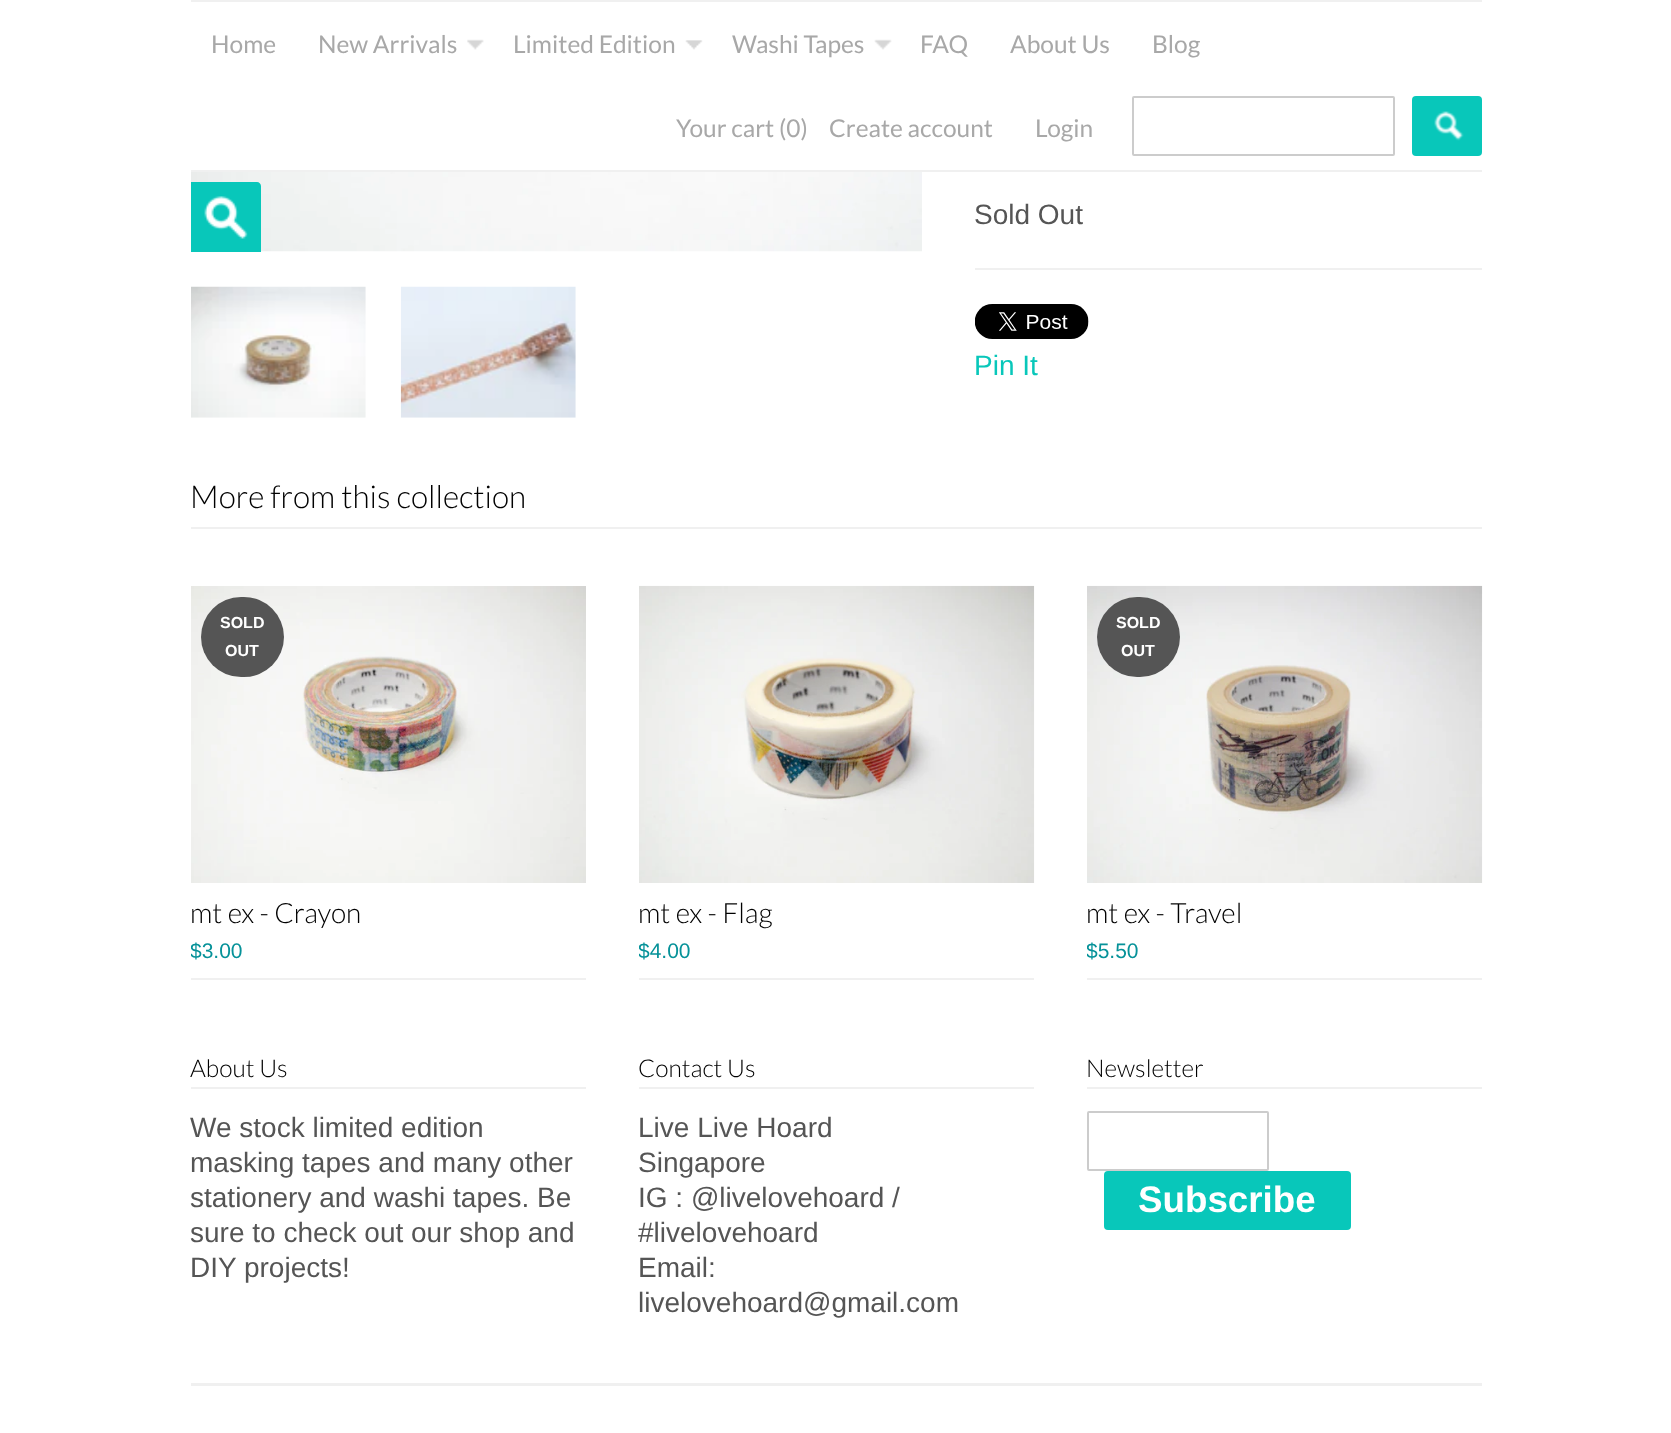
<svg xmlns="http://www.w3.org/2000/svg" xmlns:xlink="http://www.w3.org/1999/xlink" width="1671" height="1433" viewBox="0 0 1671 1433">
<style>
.cls-1{font:24.5px Lato;fill:#a8a8a8}
.cls-2{font:28px Liberation Sans;fill:#555555}
.cls-3{font:28px Liberation Sans;fill:#08c7ba}
.cls-4{font:300 31.5px Lato;fill:#000000}
.cls-5{font:bold 16px Liberation Sans;fill:#ffffff}
.cls-6{font:300 28px Lato;fill:#000000}
.cls-7{font:21px Liberation Sans;fill:#069299}
.cls-8{font:300 24.5px Lato;fill:#000000}
.cls-9{font:bold 36.75px Liberation Sans;fill:#ffffff}
</style>
<defs>
<clipPath id="clip1"><rect x="191" y="586" width="395" height="392"/></clipPath>
<clipPath id="clip2"><rect x="639" y="586" width="395" height="392"/></clipPath>
<clipPath id="clip3"><rect x="1087" y="586" width="395" height="392"/></clipPath>
</defs>
<rect width="100%" height="100%" fill="#ffffff"/>
<rect fill="#f0f0f0" x="191" y="0" width="1291" height="2"/>
<rect fill="#f0f0f0" x="191" y="170" width="1291" height="2"/>
<image xlink:href="image0.png" x="467" y="39" width="17" height="11"/>
<image xlink:href="image1.png" x="685" y="40" width="18" height="10"/>
<image xlink:href="image2.png" x="874" y="39" width="18" height="11"/>
<rect fill="none" stroke="#cccccc" stroke-width="2" x="1133" y="97" width="261" height="58" rx="1"/>
<rect fill="#08c7ba" x="1412" y="96" width="70" height="60" rx="4"/>
<image xlink:href="image3.png" x="1434" y="111" width="30" height="30"/>
<image xlink:href="image4.png" x="191" y="172" width="731" height="80"/>
<path fill="#08c7ba" d="M191 182H257C259 182 261 184 261 186V252H191Z"/>
<image xlink:href="image5.png" x="204" y="196" width="44" height="43"/>
<image xlink:href="image6.png" x="191" y="286" width="175" height="132"/>
<image xlink:href="image7.png" x="400" y="286" width="176" height="132"/>
<rect fill="#f0f0f0" x="975" y="268" width="507" height="2"/>
<image xlink:href="image8.png" x="975" y="304" width="114" height="35"/>
<rect fill="#f0f0f0" x="191" y="527" width="1291" height="2"/>
<rect fill="#f0f0f0" x="191" y="978" width="395" height="2"/>
<image xlink:href="image9.png" x="191" y="586" width="395" height="297"/>
<rect fill="#555555" x="201" y="597" width="83" height="80" rx="40"/>
<rect fill="#f0f0f0" x="639" y="978" width="395" height="2"/>
<image xlink:href="image10.png" x="639" y="585" width="396" height="298"/>
<rect fill="#f0f0f0" x="1087" y="978" width="395" height="2"/>
<image xlink:href="image11.png" x="1087" y="585" width="396" height="298"/>
<rect fill="#555555" x="1097" y="597" width="83" height="80" rx="40"/>
<rect fill="#f0f0f0" x="191" y="1087" width="395" height="2"/>
<rect fill="#f0f0f0" x="639" y="1087" width="395" height="2"/>
<rect fill="#f0f0f0" x="1087" y="1087" width="395" height="2"/>
<rect fill="none" stroke="#cccccc" stroke-width="2" x="1088" y="1112" width="180" height="58" rx="1"/>
<rect fill="#08c7ba" x="1104" y="1171" width="247" height="59" rx="4"/>
<rect fill="#f0f0f0" x="191" y="1383" width="1291" height="3"/>
<text class="cls-1" x="211" y="53">Home</text>
<text class="cls-1" x="318" y="53">New Arrivals</text>
<text class="cls-1" x="513" y="53">Limited Edition</text>
<text class="cls-1" x="732" y="53">Washi Tapes</text>
<text class="cls-1" x="920" y="53">FAQ</text>
<text class="cls-1" x="1010" y="53">About Us</text>
<text class="cls-1" x="1152" y="53">Blog</text>
<text class="cls-1" x="676" y="137">Your cart (0)</text>
<text class="cls-1" x="829" y="137">Create account</text>
<text class="cls-1" x="1035" y="137">Login</text>
<text class="cls-2" x="974" y="224">Sold Out</text>
<text class="cls-3" x="974" y="375">Pin It</text>
<text class="cls-4" x="190" y="508">More from this collection</text>
<text class="cls-5" x="220" y="628">SOLD</text>
<text class="cls-5" x="225" y="656">OUT</text>
<text class="cls-6" x="190" y="923">mt ex - Crayon</text>
<g clip-path="url(#clip1)">
<text class="cls-7" x="190" y="958">$3.00</text>
</g>
<text class="cls-6" x="638" y="923">mt ex - Flag</text>
<g clip-path="url(#clip2)">
<text class="cls-7" x="638" y="958">$4.00</text>
</g>
<text class="cls-5" x="1116" y="628">SOLD</text>
<text class="cls-5" x="1121" y="656">OUT</text>
<text class="cls-6" x="1086" y="923">mt ex - Travel</text>
<g clip-path="url(#clip3)">
<text class="cls-7" x="1086" y="958">$5.50</text>
</g>
<text class="cls-8" x="190" y="1077">About Us</text>
<text class="cls-2"><tspan x="190" y="1137">We stock limited edition</tspan><tspan x="190" y="1172">masking tapes and many other</tspan><tspan x="190" y="1207">stationery and washi tapes. Be</tspan><tspan x="190" y="1242">sure to check out our shop and</tspan><tspan x="190" y="1277">DIY projects!</tspan></text>
<text class="cls-8" x="638" y="1077">Contact Us</text>
<text class="cls-2"><tspan x="638" y="1137">Live Live Hoard</tspan><tspan x="638" y="1172">Singapore</tspan><tspan x="638" y="1207">IG : @livelovehoard /</tspan><tspan x="638" y="1242">#livelovehoard</tspan><tspan x="638" y="1277">Email:</tspan><tspan x="638" y="1312">livelovehoard@gmail.com</tspan></text>
<text class="cls-8" x="1086" y="1077">Newsletter</text>
<text class="cls-9" x="1138" y="1212">Subscribe</text>
</svg>
